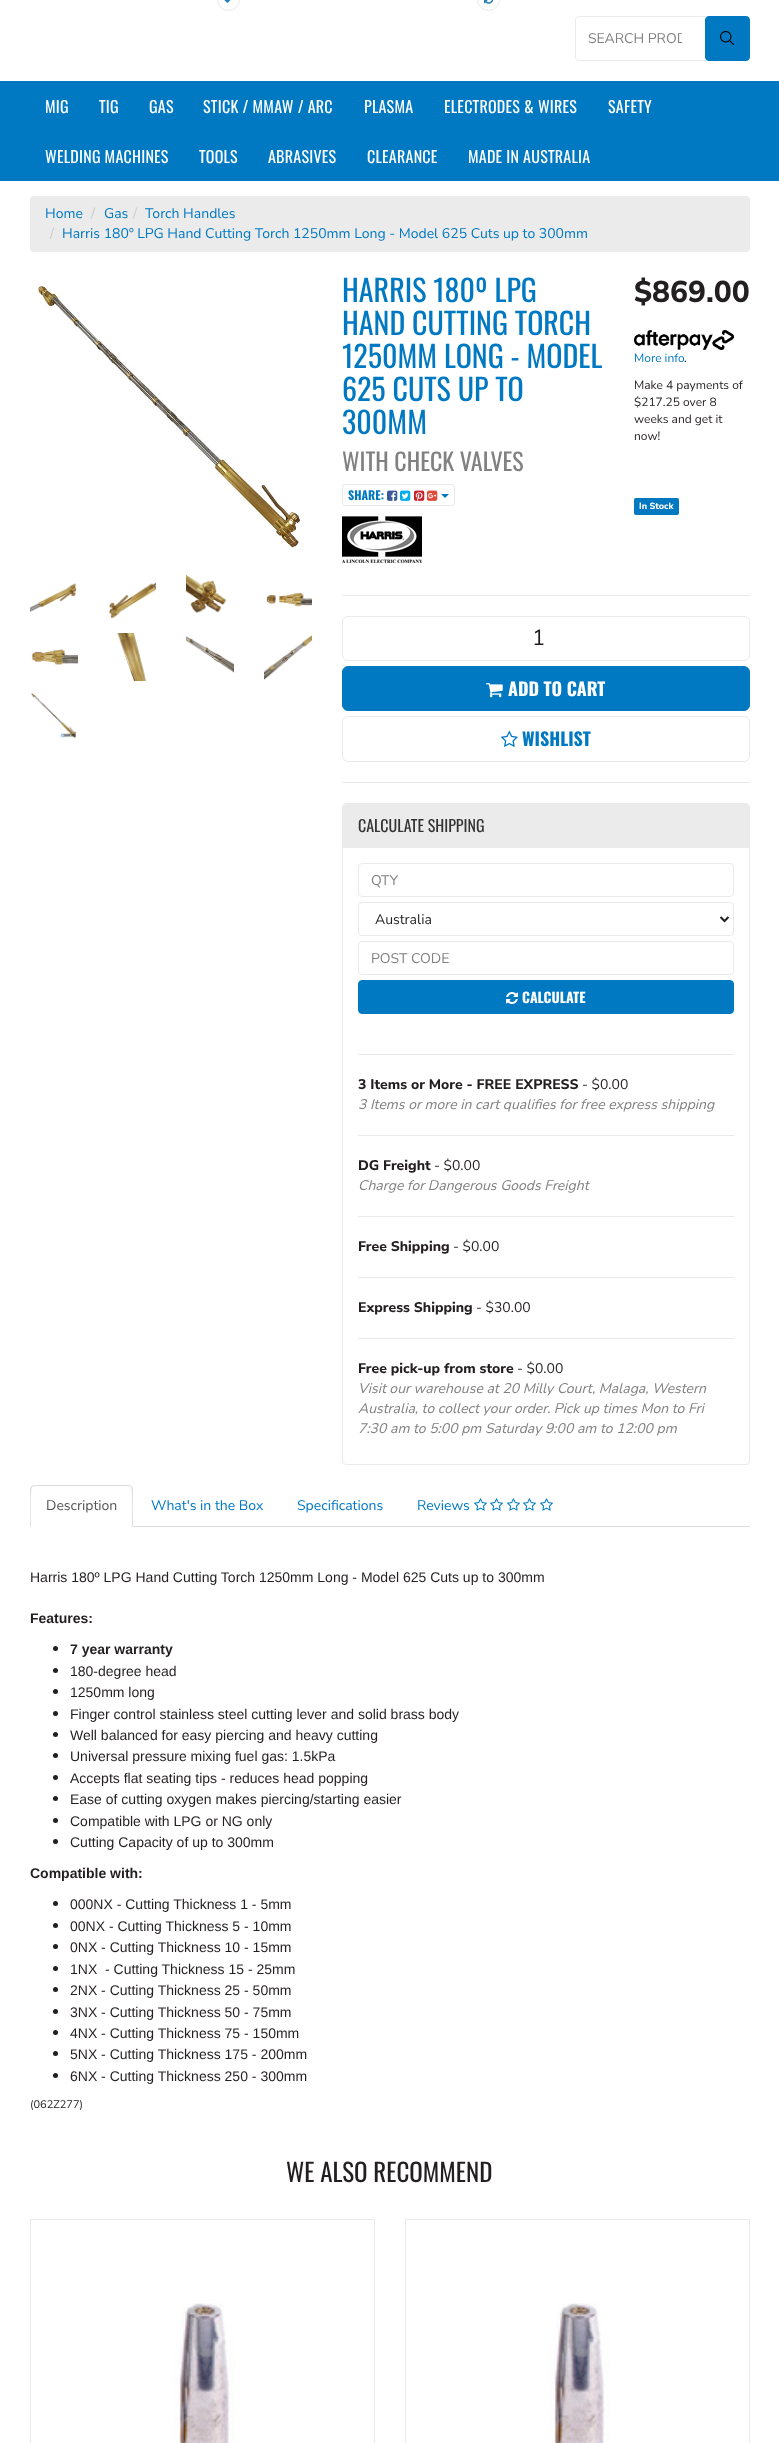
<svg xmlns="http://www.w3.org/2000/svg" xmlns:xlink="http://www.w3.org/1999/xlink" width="779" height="2443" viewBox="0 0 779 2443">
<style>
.cls-1{font:14px Nunito Sans;fill:#818181}
.cls-2{font:16px Oswald;letter-spacing:0.25px;fill:#ffffff}
.cls-3{font:14px Nunito Sans;fill:#0079c2}
.cls-4{font:14px Nunito Sans;fill:#cccccc}
.cls-5{font:30px Oswald;fill:#0079c2}
.cls-6{font:24px Oswald;fill:#818181}
.cls-7{font:bold 12px Oswald;fill:#0079c2}
.cls-8{font:800 30px Nunito Sans;fill:#231f20}
.cls-9{font:12px Nunito Sans;fill:#0079c2}
.cls-10{font:12px Nunito Sans;fill:#231f20}
.cls-11{font:800 9px Nunito Sans;fill:#ffffff}
.cls-12{font:22px Nunito Sans;fill:#231f20}
.cls-13{font:bold 18px Oswald;fill:#ffffff}
.cls-14{font:bold 18px Oswald;fill:#0079c2}
.cls-15{font:16px Oswald;fill:#333333}
.cls-16{font:14px Nunito Sans;fill:#231f20}
.cls-17{font:bold 14px Oswald;fill:#ffffff}
.cls-18{font:800 14px Nunito Sans;fill:#231f20}
.cls-19{font:italic 14px Nunito Sans;fill:#818181}
.cls-20{font:14px Nunito Sans;fill:#555555}
.cls-21{font:14px Liberation Sans;fill:#231f20}
.cls-22{font:bold 14px Liberation Sans;fill:#231f20}
.cls-23{font:11px Nunito Sans;fill:#231f20}
.cls-24{font:25px Oswald;fill:#231f20}
</style>
<defs>
<clipPath id="clip1"><rect x="588" y="29" width="94" height="19"/></clipPath>
</defs>
<rect width="100%" height="100%" fill="#ffffff"/>
<circle fill="none" stroke="#eaeaea" cx="228.5" cy="-0.5" r="11"/>
<image xlink:href="image0.png" x="224" y="0" width="7" height="3"/>
<circle fill="none" stroke="#eaeaea" cx="488.5" cy="-0.5" r="11"/>
<image xlink:href="image1.png" x="484" y="0" width="10" height="4"/>
<path fill="#eaeaea" fill-rule="evenodd" d="M579 16H746C748 16 750 18 750 20V57C750 59 748 61 746 61H579C577 61 575 59 575 57V20C575 18 577 16 579 16ZM579 17H746C748 17 750 18 750 20V57C750 59 748 60 746 60H579C577 60 576 59 576 57V20C576 18 577 17 579 17Z"/>
<rect fill="#0079c2" stroke="#0079c2" x="705.5" y="16.5" width="44" height="44" rx="3.5"/>
<image xlink:href="image2.png" x="720" y="31" width="14" height="14"/>
<rect fill="#0079c2" x="0" y="81" width="779" height="100"/>
<rect fill="#ebebeb" x="30" y="196" width="720" height="56" rx="4"/>
<image xlink:href="image3.png" x="37" y="286" width="264" height="262"/>
<image xlink:href="image4.png" x="30" y="583" width="47" height="29"/>
<image xlink:href="image5.png" x="109" y="582" width="47" height="37"/>
<image xlink:href="image6.png" x="186" y="575" width="41" height="38"/>
<image xlink:href="image7.png" x="266" y="592" width="46" height="15"/>
<image xlink:href="image8.png" x="31" y="649" width="47" height="16"/>
<image xlink:href="image9.png" x="117" y="633" width="30" height="48"/>
<image xlink:href="image10.png" x="186" y="636" width="48" height="37"/>
<image xlink:href="image11.png" x="264" y="635" width="48" height="45"/>
<image xlink:href="image12.png" x="31" y="693" width="46" height="46"/>
<rect fill="none" stroke="#eaeaea" x="342.5" y="484.5" width="112" height="21" rx="2.5"/>
<image xlink:href="image13.png" x="387" y="490" width="11" height="11"/>
<image xlink:href="image14.png" x="400" y="490" width="11" height="11"/>
<image xlink:href="image15.png" x="414" y="490" width="11" height="11"/>
<image xlink:href="image16.png" x="427" y="490" width="11" height="11"/>
<path fill="#0079c2" d="M441 494H449L445 498Z"/>
<image xlink:href="image17.png" x="342" y="516" width="80" height="47"/>
<image xlink:href="image18.png" x="634" y="330" width="100" height="20"/>
<rect fill="#0079c2" x="634" y="498" width="45" height="17" rx="2"/>
<rect fill="#eaeaea" x="342" y="595" width="408" height="1"/>
<rect fill="none" stroke="#eaeaea" x="342.5" y="616.5" width="407" height="44" rx="5.5"/>
<rect fill="#0079c2" stroke="#0079c2" x="342.5" y="666.5" width="407" height="44" rx="5.5"/>
<image xlink:href="image19.png" x="486" y="683" width="17" height="15"/>
<rect fill="none" stroke="#eaeaea" x="342.5" y="716.5" width="407" height="45" rx="5.5"/>
<image xlink:href="image20.png" x="501" y="730" width="17" height="17"/>
<rect fill="#eaeaea" x="342" y="782" width="408" height="1"/>
<rect fill="none" stroke="#eaeaea" x="342.5" y="803.5" width="407" height="661" rx="3.5"/>
<path fill="#ebebeb" d="M346 804H746C747.5 804 749 805.5 749 807V848H343V807C343 805.5 344.5 804 346 804Z"/>
<rect fill="none" stroke="#eaeaea" x="358.5" y="863.5" width="375" height="33" rx="3.5"/>
<rect fill="none" stroke="#eaeaea" x="358.5" y="902.5" width="375" height="33" rx="3.5"/>
<path fill="none" stroke="#231f20" stroke-width="2" d="M720.5 917L724.5 921L728.5 917"/>
<rect fill="none" stroke="#eaeaea" x="358.5" y="941.5" width="375" height="33" rx="3.5"/>
<rect fill="#0079c2" stroke="#0079c2" x="358.5" y="980.5" width="375" height="33" rx="3.5"/>
<image xlink:href="image21.png" x="506" y="992" width="12" height="12"/>
<rect fill="#eaeaea" x="358" y="1054" width="376" height="1"/>
<rect fill="#eaeaea" x="358" y="1135" width="376" height="1"/>
<rect fill="#eaeaea" x="358" y="1216" width="376" height="1"/>
<rect fill="#eaeaea" x="358" y="1277" width="376" height="1"/>
<rect fill="#eaeaea" x="358" y="1338" width="376" height="1"/>
<rect fill="#dddddd" x="133" y="1526" width="617" height="1"/>
<path fill="#dddddd" d="M34 1485L31 1486L32 1487L34 1486H129L131 1487L132 1486L129 1485Z"/>
<path fill="#dddddd" d="M133 1527V1489C133 1488 132 1487 132 1486L131 1487C133 1489 132 1521 132 1526Z"/>
<path fill="#dddddd" d="M30 1527L31 1526C31 1521 30 1489 32 1487L31 1486L30 1489Z"/>
<image xlink:href="image22.png" x="474" y="1498" width="13" height="13"/>
<image xlink:href="image22.png" x="490" y="1498" width="13" height="13"/>
<image xlink:href="image22.png" x="507" y="1498" width="13" height="13"/>
<image xlink:href="image22.png" x="523" y="1498" width="13" height="13"/>
<image xlink:href="image22.png" x="540" y="1498" width="13" height="13"/>
<circle fill="#231f20" cx="55.5" cy="1648.5" r="2.5"/>
<circle fill="#231f20" cx="55.5" cy="1670.5" r="2.5"/>
<circle fill="#231f20" cx="55.5" cy="1691.5" r="2.5"/>
<circle fill="#231f20" cx="55.5" cy="1713.5" r="2.5"/>
<circle fill="#231f20" cx="55.5" cy="1734.5" r="2.5"/>
<circle fill="#231f20" cx="55.5" cy="1755.5" r="2.5"/>
<circle fill="#231f20" cx="55.5" cy="1777.5" r="2.5"/>
<circle fill="#231f20" cx="55.5" cy="1798.5" r="2.5"/>
<circle fill="#231f20" cx="55.5" cy="1820.5" r="2.5"/>
<circle fill="#231f20" cx="55.5" cy="1841.5" r="2.5"/>
<circle fill="#231f20" cx="55.5" cy="1903.5" r="2.5"/>
<circle fill="#231f20" cx="55.5" cy="1925.5" r="2.5"/>
<circle fill="#231f20" cx="55.5" cy="1946.5" r="2.5"/>
<circle fill="#231f20" cx="55.5" cy="1968.5" r="2.5"/>
<circle fill="#231f20" cx="55.5" cy="1989.5" r="2.5"/>
<circle fill="#231f20" cx="55.5" cy="2011.5" r="2.5"/>
<circle fill="#231f20" cx="55.5" cy="2032.5" r="2.5"/>
<circle fill="#231f20" cx="55.5" cy="2053.5" r="2.5"/>
<circle fill="#231f20" cx="55.5" cy="2075.5" r="2.5"/>
<rect fill="none" stroke="#eaeaea" x="30.5" y="2219.5" width="344" height="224"/>
<image xlink:href="image23.png" x="172" y="2303" width="63" height="140"/>
<rect fill="none" stroke="#eaeaea" x="405.5" y="2219.5" width="344" height="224"/>
<image xlink:href="image24.png" x="547" y="2303" width="63" height="140"/>
<g clip-path="url(#clip1)">
<text class="cls-1" x="588" y="43">SEARCH PROD</text>
</g>
<text class="cls-2" x="45" y="113">MIG</text>
<text class="cls-2" x="99" y="113">TIG</text>
<text class="cls-2" x="149" y="113">GAS</text>
<text class="cls-2" x="203" y="113">STICK / MMAW / ARC</text>
<text class="cls-2" x="364" y="113">PLASMA</text>
<text class="cls-2" x="444" y="113">ELECTRODES &amp; WIRES</text>
<text class="cls-2" x="608" y="113">SAFETY</text>
<text class="cls-2" x="45" y="163">WELDING MACHINES</text>
<text class="cls-2" x="199" y="163">TOOLS</text>
<text class="cls-2" x="268" y="163">ABRASIVES</text>
<text class="cls-2" x="367" y="163">CLEARANCE</text>
<text class="cls-2" x="468" y="163">MADE IN AUSTRALIA</text>
<text class="cls-3" x="45" y="218">Home</text>
<text class="cls-4" x="91" y="218">/</text>
<text class="cls-3" x="104" y="218">Gas</text>
<text class="cls-4" x="133" y="218">/</text>
<text class="cls-3" x="145" y="218">Torch Handles</text>
<text class="cls-4" x="50" y="238">/</text>
<text class="cls-3" x="62" y="238">Harris 180º LPG Hand Cutting Torch 1250mm Long - Model 625 Cuts up to 300mm</text>
<text class="cls-5"><tspan x="342" y="302">HARRIS 180º LPG</tspan><tspan x="342" y="335">HAND CUTTING TORCH</tspan><tspan x="342" y="368">1250MM LONG - MODEL</tspan><tspan x="342" y="401">625 CUTS UP TO</tspan><tspan x="342" y="434">300MM</tspan></text>
<text class="cls-6" x="342" y="471">WITH CHECK VALVES</text>
<text class="cls-7" x="348" y="500">SHARE:</text>
<text class="cls-8" x="634" y="302">$869.00</text>
<text class="cls-9" x="634" y="362">More info</text>
<text class="cls-10" x="684" y="362">.</text>
<text class="cls-10"><tspan x="634" y="389">Make 4 payments of</tspan><tspan x="634" y="406">$217.25 over 8</tspan><tspan x="634" y="423">weeks and get it</tspan><tspan x="634" y="440">now!</tspan></text>
<text class="cls-11" x="639" y="509">In Stock</text>
<text class="cls-12" x="532" y="645">1</text>
<text class="cls-13" x="508" y="696">ADD TO CART</text>
<text class="cls-14" x="522" y="746">WISHLIST</text>
<text class="cls-15" x="358" y="832">CALCULATE SHIPPING</text>
<text class="cls-1" x="371" y="885">QTY</text>
<text class="cls-16" x="375" y="924">Australia</text>
<text class="cls-1" x="371" y="963">POST CODE</text>
<text class="cls-17" x="522" y="1003">CALCULATE</text>
<text class="cls-18" x="358" y="1089">3 Items or More - FREE EXPRESS</text>
<text class="cls-16" x="582" y="1089">- $0.00</text>
<text class="cls-19" x="358" y="1109">3 Items or more in cart qualifies for free express shipping</text>
<text class="cls-18" x="358" y="1170">DG Freight</text>
<text class="cls-16" x="434" y="1170">- $0.00</text>
<text class="cls-19" x="358" y="1190">Charge for Dangerous Goods Freight</text>
<text class="cls-18" x="358" y="1251">Free Shipping</text>
<text class="cls-16" x="453" y="1251">- $0.00</text>
<text class="cls-18" x="358" y="1312">Express Shipping</text>
<text class="cls-16" x="476" y="1312">- $30.00</text>
<text class="cls-18" x="358" y="1373">Free pick-up from store</text>
<text class="cls-16" x="517" y="1373">- $0.00</text>
<text class="cls-19"><tspan x="358" y="1393">Visit our warehouse at 20 Milly Court, Malaga, Western</tspan><tspan x="358" y="1413">Australia, to collect your order. Pick up times Mon to Fri</tspan><tspan x="358" y="1433">7:30 am to 5:00 pm Saturday 9:00 am to 12:00 pm</tspan></text>
<text class="cls-20" x="46" y="1510">Description</text>
<text class="cls-3" x="151" y="1510">What's in the Box</text>
<text class="cls-3" x="297" y="1510">Specifications</text>
<text class="cls-3" x="417" y="1510">Reviews</text>
<text class="cls-21" x="30" y="1582">Harris 180º LPG Hand Cutting Torch 1250mm Long - Model 625 Cuts up to 300mm</text>
<text class="cls-22" x="30" y="1623">Features:</text>
<text class="cls-22" x="70" y="1654">7 year warranty</text>
<text class="cls-21"><tspan x="70" y="1676">180-degree head</tspan><tspan x="70" y="1697">1250mm long</tspan><tspan x="70" y="1719">Finger control stainless steel cutting lever and solid brass body</tspan><tspan x="70" y="1740">Well balanced for easy piercing and heavy cutting</tspan><tspan x="70" y="1761">Universal pressure mixing fuel gas: 1.5kPa</tspan><tspan x="70" y="1783">Accepts flat seating tips - reduces head popping</tspan><tspan x="70" y="1804">Ease of cutting oxygen makes piercing/starting easier</tspan><tspan x="70" y="1826">Compatible with LPG or NG only</tspan><tspan x="70" y="1847">Cutting Capacity of up to 300mm</tspan></text>
<text class="cls-22" x="30" y="1878">Compatible with:</text>
<text class="cls-21" xml:space="preserve"><tspan x="70" y="1909">000NX - Cutting Thickness 1 - 5mm</tspan><tspan x="70" y="1931">00NX - Cutting Thickness 5 - 10mm</tspan><tspan x="70" y="1952">0NX - Cutting Thickness 10 - 15mm</tspan><tspan x="70" y="1974">1NX  - Cutting Thickness 15 - 25mm</tspan><tspan x="70" y="1995">2NX - Cutting Thickness 25 - 50mm</tspan><tspan x="70" y="2017">3NX - Cutting Thickness 50 - 75mm</tspan><tspan x="70" y="2038">4NX - Cutting Thickness 75 - 150mm</tspan><tspan x="70" y="2059">5NX - Cutting Thickness 175 - 200mm</tspan><tspan x="70" y="2081">6NX - Cutting Thickness 250 - 300mm</tspan></text>
<text class="cls-23" x="30" y="2108">(062Z277)</text>
<text class="cls-24" x="286" y="2182">WE ALSO RECOMMEND</text>
</svg>
